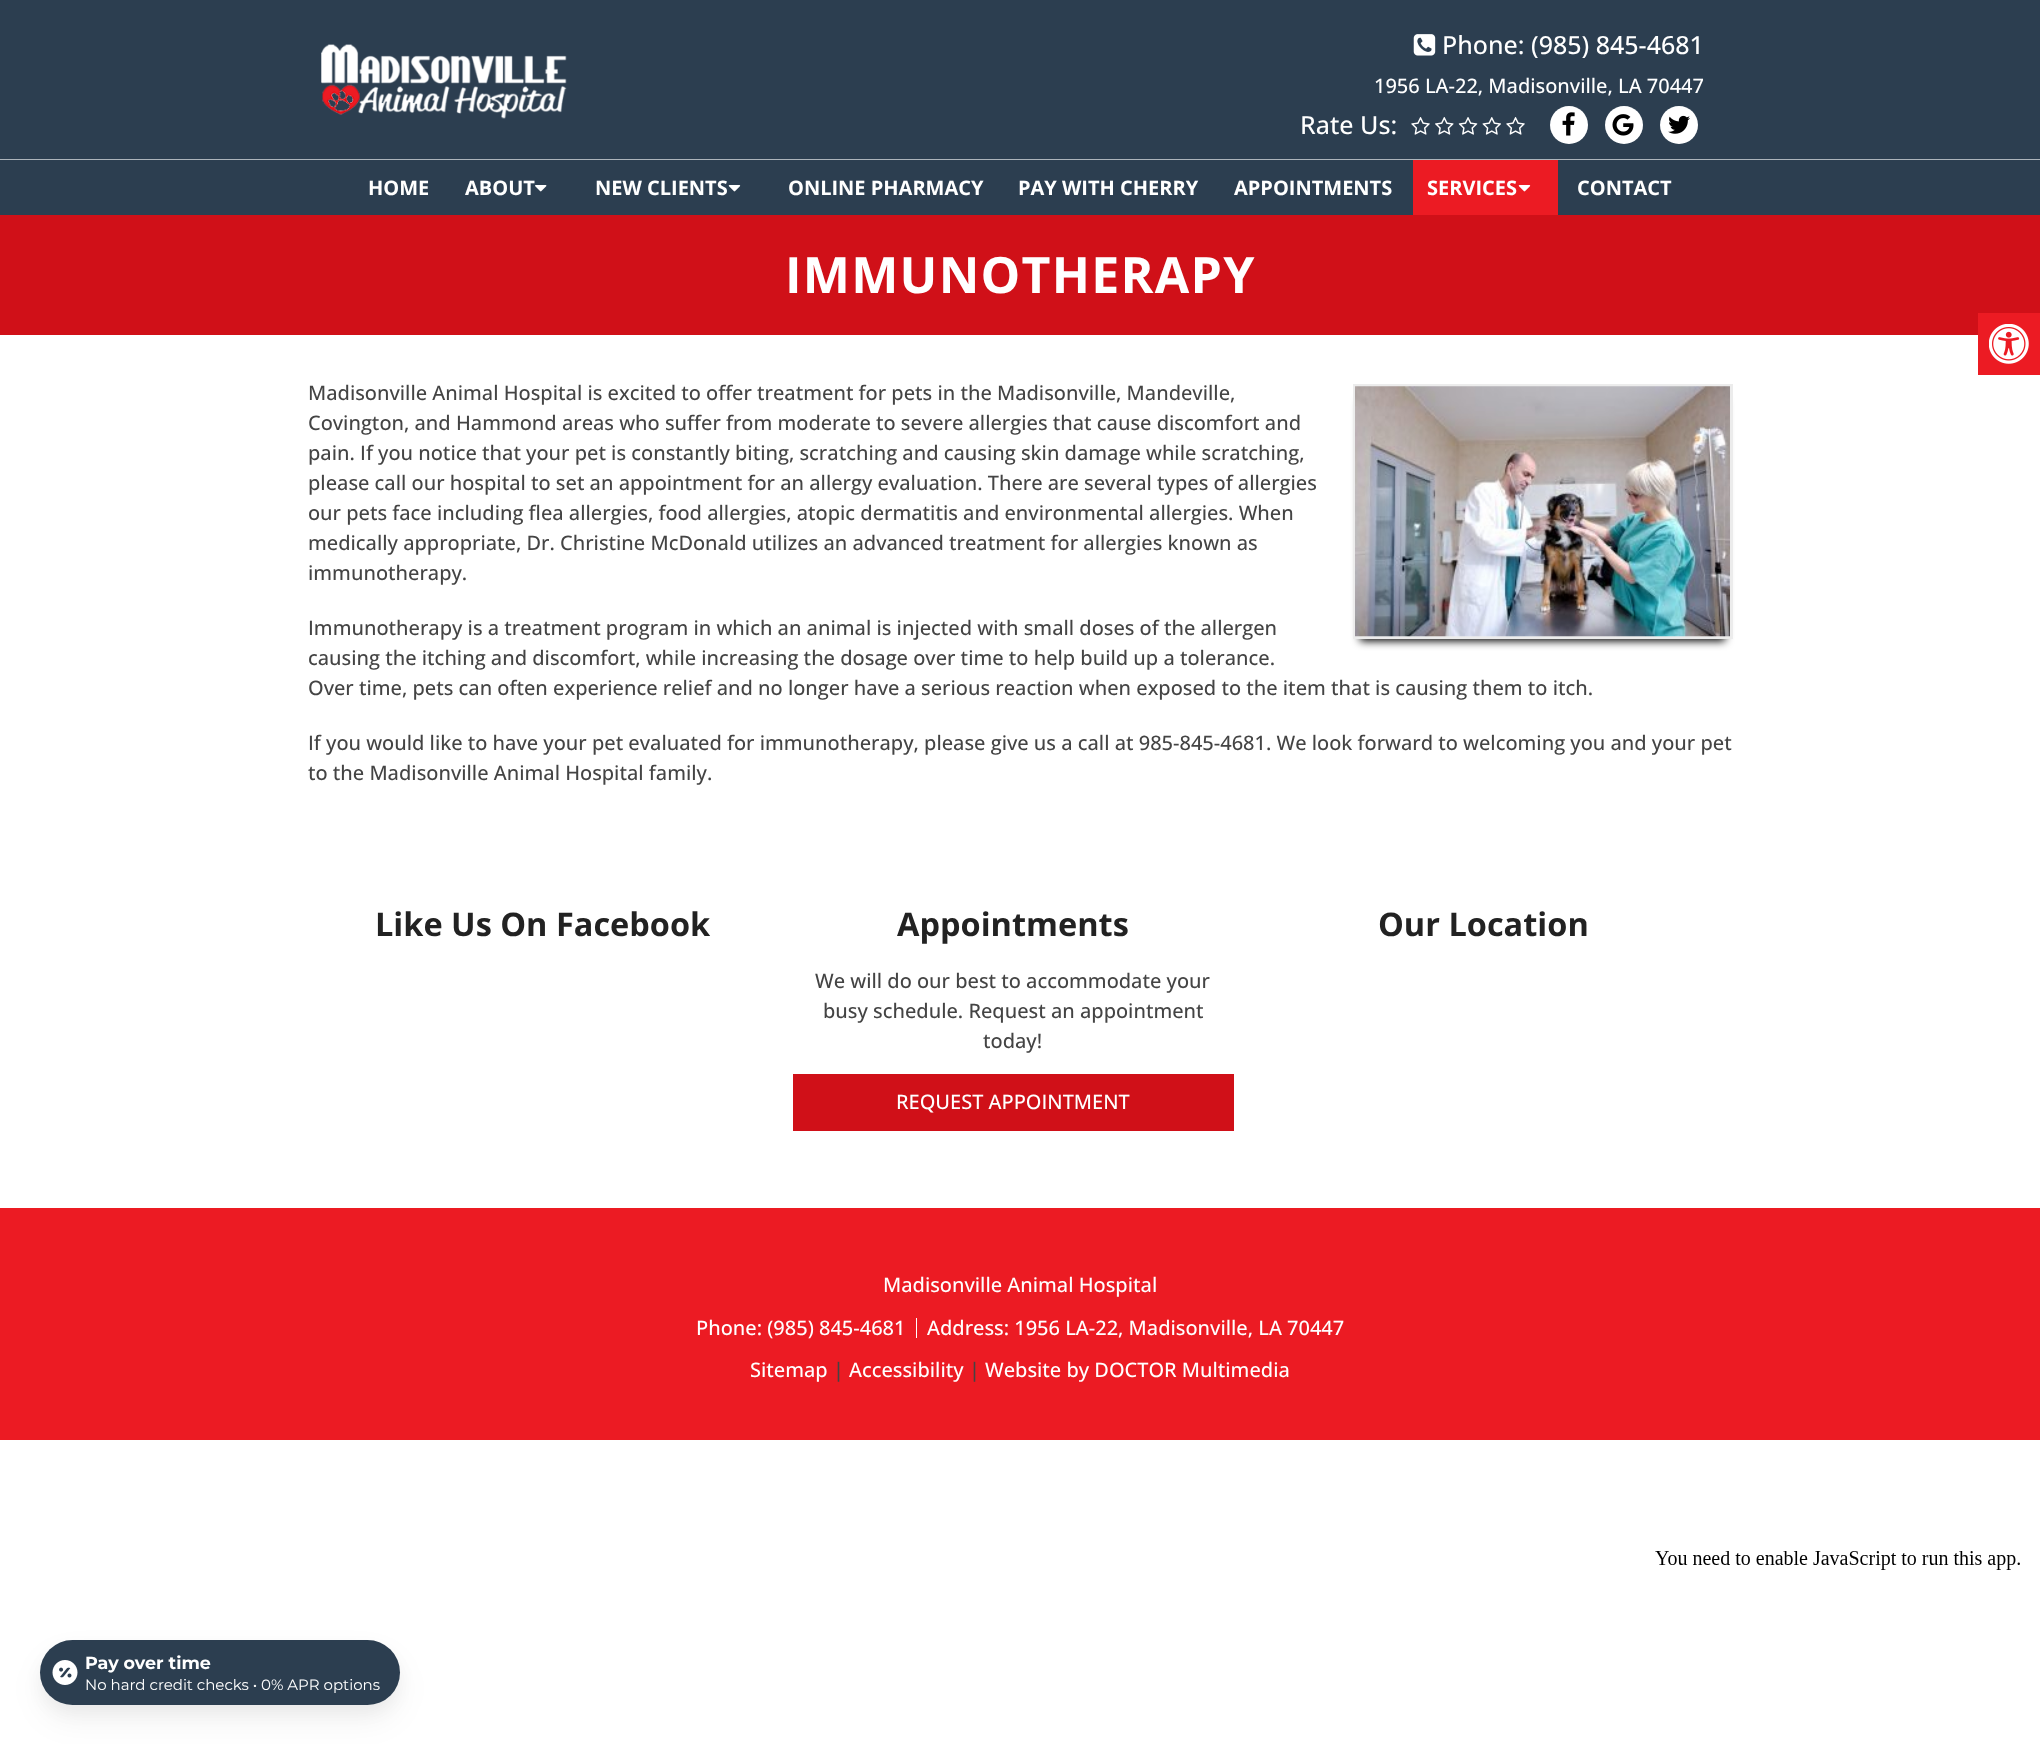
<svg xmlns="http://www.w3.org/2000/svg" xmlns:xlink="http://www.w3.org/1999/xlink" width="2040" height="1744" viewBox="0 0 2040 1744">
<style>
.cls-1{font:500 25px Open Sans;fill:#ffffff}
.cls-2{font:500 20px Open Sans;fill:#ffffff}
.cls-3{font:bold 20px Open Sans;fill:#ffffff}
.cls-4{font:bold 50px Open Sans;letter-spacing:1.25px;fill:#ffffff}
.cls-5{font:500 20px Open Sans;fill:#444444}
.cls-6{font:bold 32.5px Open Sans;fill:#222222}
.cls-7{font:bold 17.5px Montserrat;fill:#ffffff}
.cls-8{font:15px Montserrat;fill:#ffffff}
</style>
<rect width="100%" height="100%" fill="#ffffff"/>
<rect fill="#2c3e50" x="0" y="0" width="2040" height="215"/>
<image xlink:href="image0.png" x="321" y="44" width="246" height="75"/>
<image xlink:href="image1.png" x="1413" y="34" width="23" height="22"/>
<image xlink:href="image2.png" x="1411" y="117" width="19" height="18"/>
<image xlink:href="image3.png" x="1435" y="117" width="19" height="18"/>
<image xlink:href="image4.png" x="1458" y="117" width="20" height="18"/>
<image xlink:href="image5.png" x="1482" y="117" width="19" height="18"/>
<image xlink:href="image2.png" x="1506" y="117" width="19" height="18"/>
<circle fill="#ffffff" cx="1569" cy="125" r="19"/>
<image xlink:href="image6.png" x="1562" y="112" width="13" height="24"/>
<circle fill="#ffffff" cx="1624" cy="125" r="19"/>
<image xlink:href="image7.png" x="1612" y="114" width="22" height="22"/>
<circle fill="#ffffff" cx="1679" cy="125" r="19"/>
<image xlink:href="image8.png" x="1668" y="115" width="22" height="19"/>
<rect fill="#adb4bb" x="0" y="159" width="2040" height="1"/>
<image xlink:href="image9.png" x="535" y="185" width="12" height="7"/>
<image xlink:href="image10.png" x="728" y="185" width="13" height="7"/>
<rect fill="#ec1b23" x="1413" y="160" width="145" height="55"/>
<image xlink:href="image11.png" x="1518" y="185" width="13" height="7"/>
<rect fill="#d01018" x="0" y="215" width="2040" height="120"/>
<rect fill="#000000" filter="blur(4px)" x="1360" y="401" width="365" height="240"/>
<rect fill="none" stroke="#ececec" stroke-width="3" x="1354.5" y="385.5" width="377" height="252"/>
<image xlink:href="image12.png" x="1355" y="386" width="375" height="251"/>
<rect fill="#d01018" x="793" y="1074" width="441" height="57"/>
<rect fill="#ec1b23" x="0" y="1208" width="2040" height="232"/>
<rect fill="#ffffff" x="916" y="1318" width="1" height="20"/>
<rect fill="#ec1b23" x="1978" y="313" width="62" height="62"/>
<image xlink:href="image13.png" x="1989" y="324" width="40" height="40"/>
<image xlink:href="image14.png" x="1655" y="1551" width="365" height="19"/>
<rect fill="#000000" fill-opacity="0.04" filter="blur(7.5px)" x="40" y="1648" width="360" height="65" rx="32.5"/>
<rect fill="#000000" fill-opacity="0.05" filter="blur(15.5px)" x="40" y="1656" width="360" height="65" rx="32.5"/>
<rect fill="#2c3e50" x="40" y="1640" width="360" height="65" rx="32.5"/>
<image xlink:href="image15.png" x="52" y="1660" width="26" height="25"/>
<text class="cls-1" x="1442" y="54">Phone: (985) 845-4681</text>
<text class="cls-2" x="1374" y="93">1956 LA-22, Madisonville, LA 70447</text>
<text class="cls-1" x="1300" y="134">Rate Us:</text>
<text class="cls-3" x="368" y="195">HOME</text>
<text class="cls-3" x="465" y="195">ABOUT</text>
<text class="cls-3" x="595" y="195">NEW CLIENTS</text>
<text class="cls-3" x="788" y="195">ONLINE PHARMACY</text>
<text class="cls-3" x="1018" y="195">PAY WITH CHERRY</text>
<text class="cls-3" x="1234" y="195">APPOINTMENTS</text>
<text class="cls-3" x="1427" y="195">SERVICES</text>
<text class="cls-3" x="1577" y="195">CONTACT</text>
<text class="cls-4" x="785" y="293">IMMUNOTHERAPY</text>
<text class="cls-5"><tspan x="308" y="400">Madisonville Animal Hospital is excited to offer treatment for pets in the Madisonville, Mandeville,</tspan><tspan x="308" y="430">Covington, and Hammond areas who suffer from moderate to severe allergies that cause discomfort and</tspan><tspan x="308" y="460">pain. If you notice that your pet is constantly biting, scratching and causing skin damage while scratching,</tspan><tspan x="308" y="490">please call our hospital to set an appointment for an allergy evaluation. There are several types of allergies</tspan><tspan x="308" y="520">our pets face including flea allergies, food allergies, atopic dermatitis and environmental allergies. When</tspan><tspan x="308" y="550">medically appropriate, Dr. Christine McDonald utilizes an advanced treatment for allergies known as</tspan><tspan x="308" y="580">immunotherapy.</tspan></text>
<text class="cls-5"><tspan x="308" y="635">Immunotherapy is a treatment program in which an animal is injected with small doses of the allergen</tspan><tspan x="308" y="665">causing the itching and discomfort, while increasing the dosage over time to help build up a tolerance.</tspan><tspan x="308" y="695">Over time, pets can often experience relief and no longer have a serious reaction when exposed to the item that is causing them to itch.</tspan></text>
<text class="cls-5"><tspan x="308" y="750">If you would like to have your pet evaluated for immunotherapy, please give us a call at 985-845-4681. We look forward to welcoming you and your pet</tspan><tspan x="308" y="780">to the Madisonville Animal Hospital family.</tspan></text>
<text class="cls-6" x="375" y="936">Like Us On Facebook</text>
<text class="cls-6" x="897" y="936">Appointments</text>
<text class="cls-5" x="815" y="988">We will do our best to accommodate your</text>
<text class="cls-5" x="823" y="1018">busy schedule. Request an appointment</text>
<text class="cls-5" x="983" y="1048">today!</text>
<text class="cls-2" x="896" y="1109">REQUEST APPOINTMENT</text>
<text class="cls-6" x="1378" y="936">Our Location</text>
<text class="cls-2" x="883" y="1292">Madisonville Animal Hospital</text>
<text class="cls-2" x="696" y="1335">Phone: (985) 845-4681</text>
<text class="cls-2" x="927" y="1335">Address: 1956 LA-22, Madisonville, LA 70447</text>
<text class="cls-2" x="750" y="1377">Sitemap</text>
<text class="cls-5" x="833" y="1377">|</text>
<text class="cls-2" x="849" y="1377">Accessibility</text>
<text class="cls-5" x="969" y="1377">|</text>
<text class="cls-2" x="985" y="1377">Website by DOCTOR Multimedia</text>
<text class="cls-7" x="85" y="1669">Pay over time</text>
<text class="cls-8" x="85" y="1690">No hard credit checks • 0% APR options</text>
</svg>
